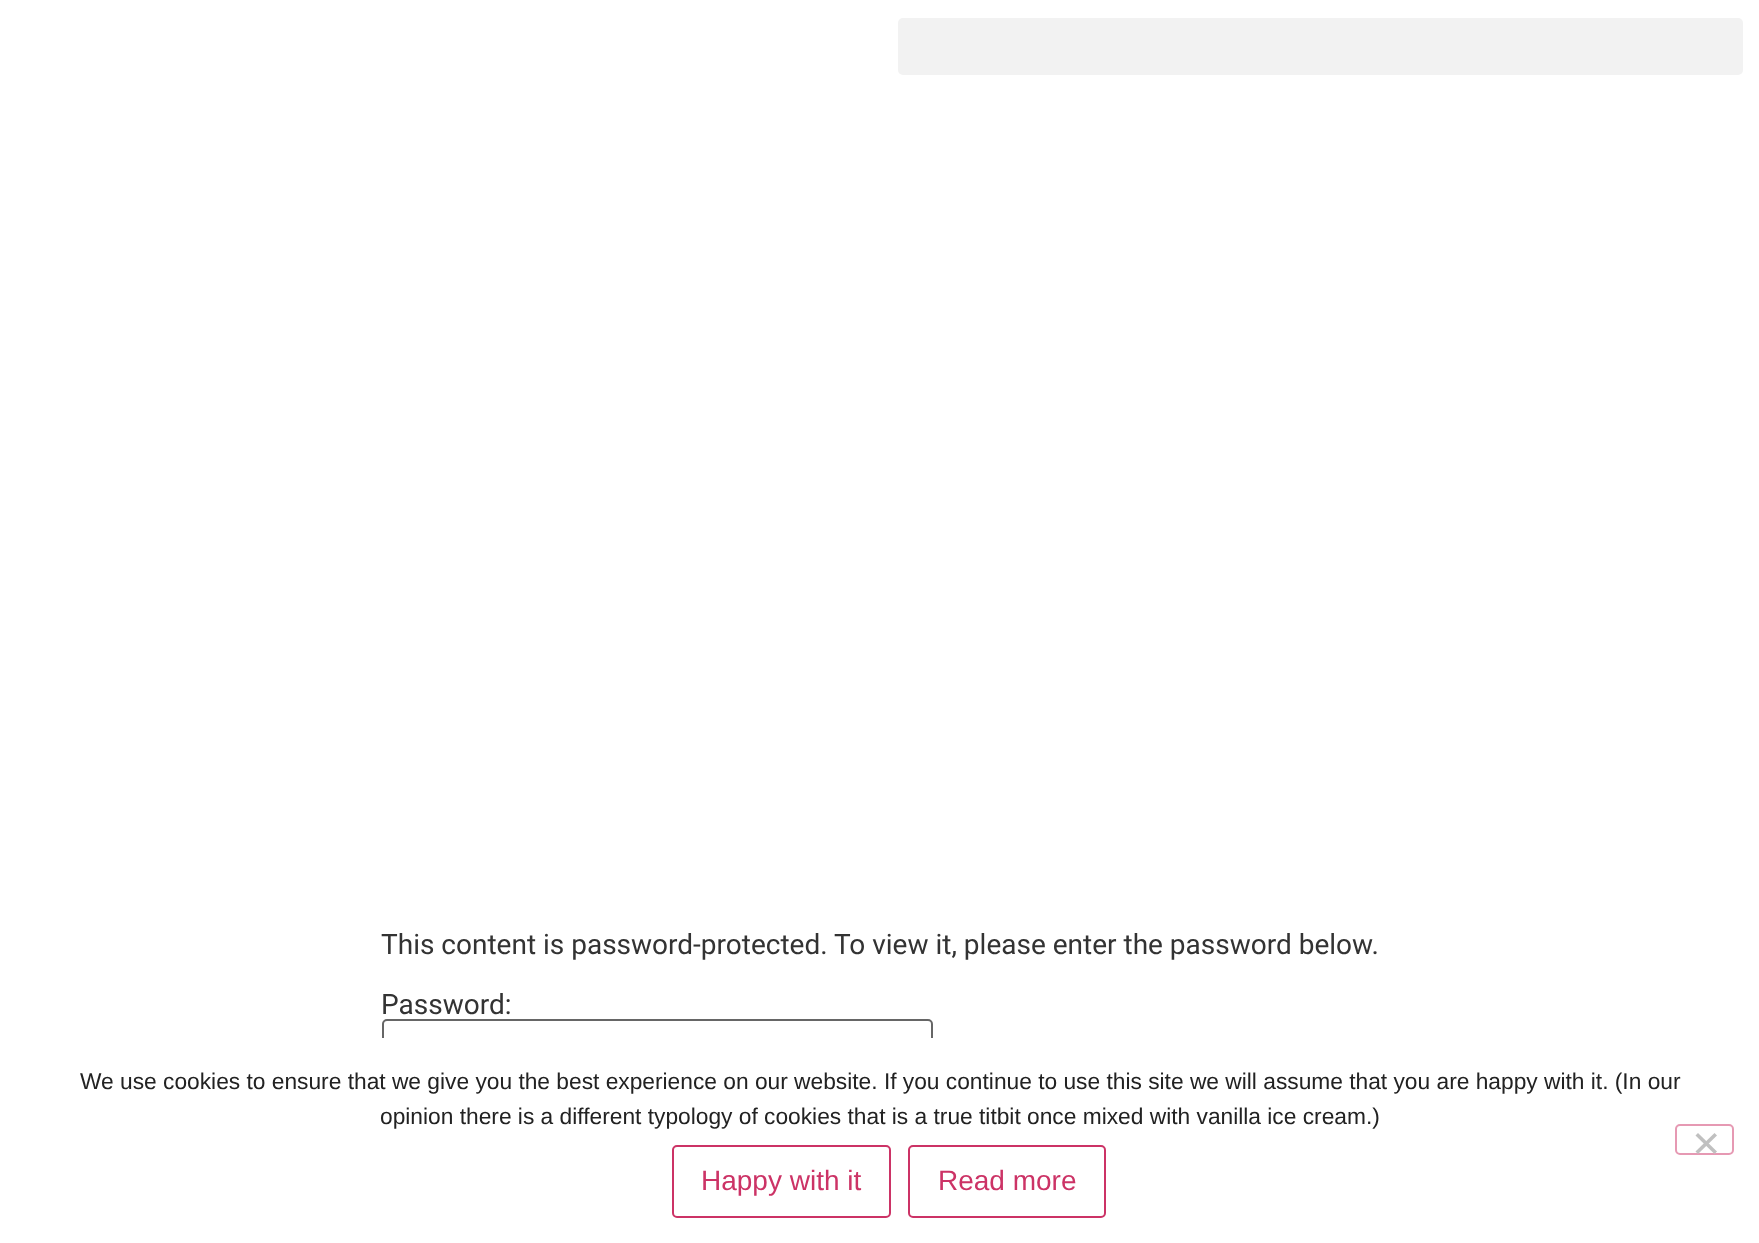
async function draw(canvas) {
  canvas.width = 1759;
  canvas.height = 1243;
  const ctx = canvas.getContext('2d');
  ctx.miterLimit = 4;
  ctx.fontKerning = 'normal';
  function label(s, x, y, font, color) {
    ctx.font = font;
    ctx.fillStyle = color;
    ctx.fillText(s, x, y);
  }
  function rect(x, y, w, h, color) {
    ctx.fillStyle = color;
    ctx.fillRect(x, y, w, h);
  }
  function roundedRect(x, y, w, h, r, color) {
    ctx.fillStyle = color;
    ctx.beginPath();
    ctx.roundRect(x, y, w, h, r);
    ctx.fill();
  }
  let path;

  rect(0, 0, 1759, 1243, '#fff');
  roundedRect(898, 18, 845, 57, 5, '#f2f2f2');
  label('This content is password-protected. To view it, please enter the password below.', 381, 954, '28px Roboto', '#333');
  label('Password:', 381, 1014, '28px Roboto', '#333');
  ctx.beginPath();
  ctx.roundRect(383, 1020, 549, 71, 4);
  ctx.strokeStyle = '#666';
  ctx.lineWidth = 2;
  ctx.stroke();
  rect(382, 1038, 551, 54, '#fff');
  label('We use cookies to ensure that we give you the best experience on our website. If you continue to use this site we will assume that you are happy with it. (In our', 80, 1089, '22.75px Liberation Sans', '#222');
  label('opinion there is a different typology of cookies that is a true titbit once mixed with vanilla ice cream.)', 380, 1124, '22.75px Liberation Sans', '#222');
  ctx.beginPath();
  ctx.roundRect(1676, 1125, 57, 29, 4);
  ctx.strokeStyle = '#e699b3';
  ctx.stroke();
  ctx.fillStyle = '#c0c0c0';
  path = new Path2D('M1714.5 1133L1717 1135.5L1698 1154L1695.5 1151.5Z');
  ctx.fill(path);
  path = new Path2D('M1695.5 1135.5L1698 1133L1717 1151.5L1714.5 1154Z');
  ctx.fill(path);
  ctx.beginPath();
  ctx.roundRect(673, 1146, 217, 71, 4);
  ctx.strokeStyle = '#c36';
  ctx.stroke();
  label('Happy with it', 701, 1190, '28px Liberation Sans', '#c36');
  ctx.beginPath();
  ctx.roundRect(909, 1146, 196, 71, 4);
  ctx.stroke();
  label('Read more', 938, 1190, '28px Liberation Sans', '#c36');
}

draw(document.querySelector('canvas'));
